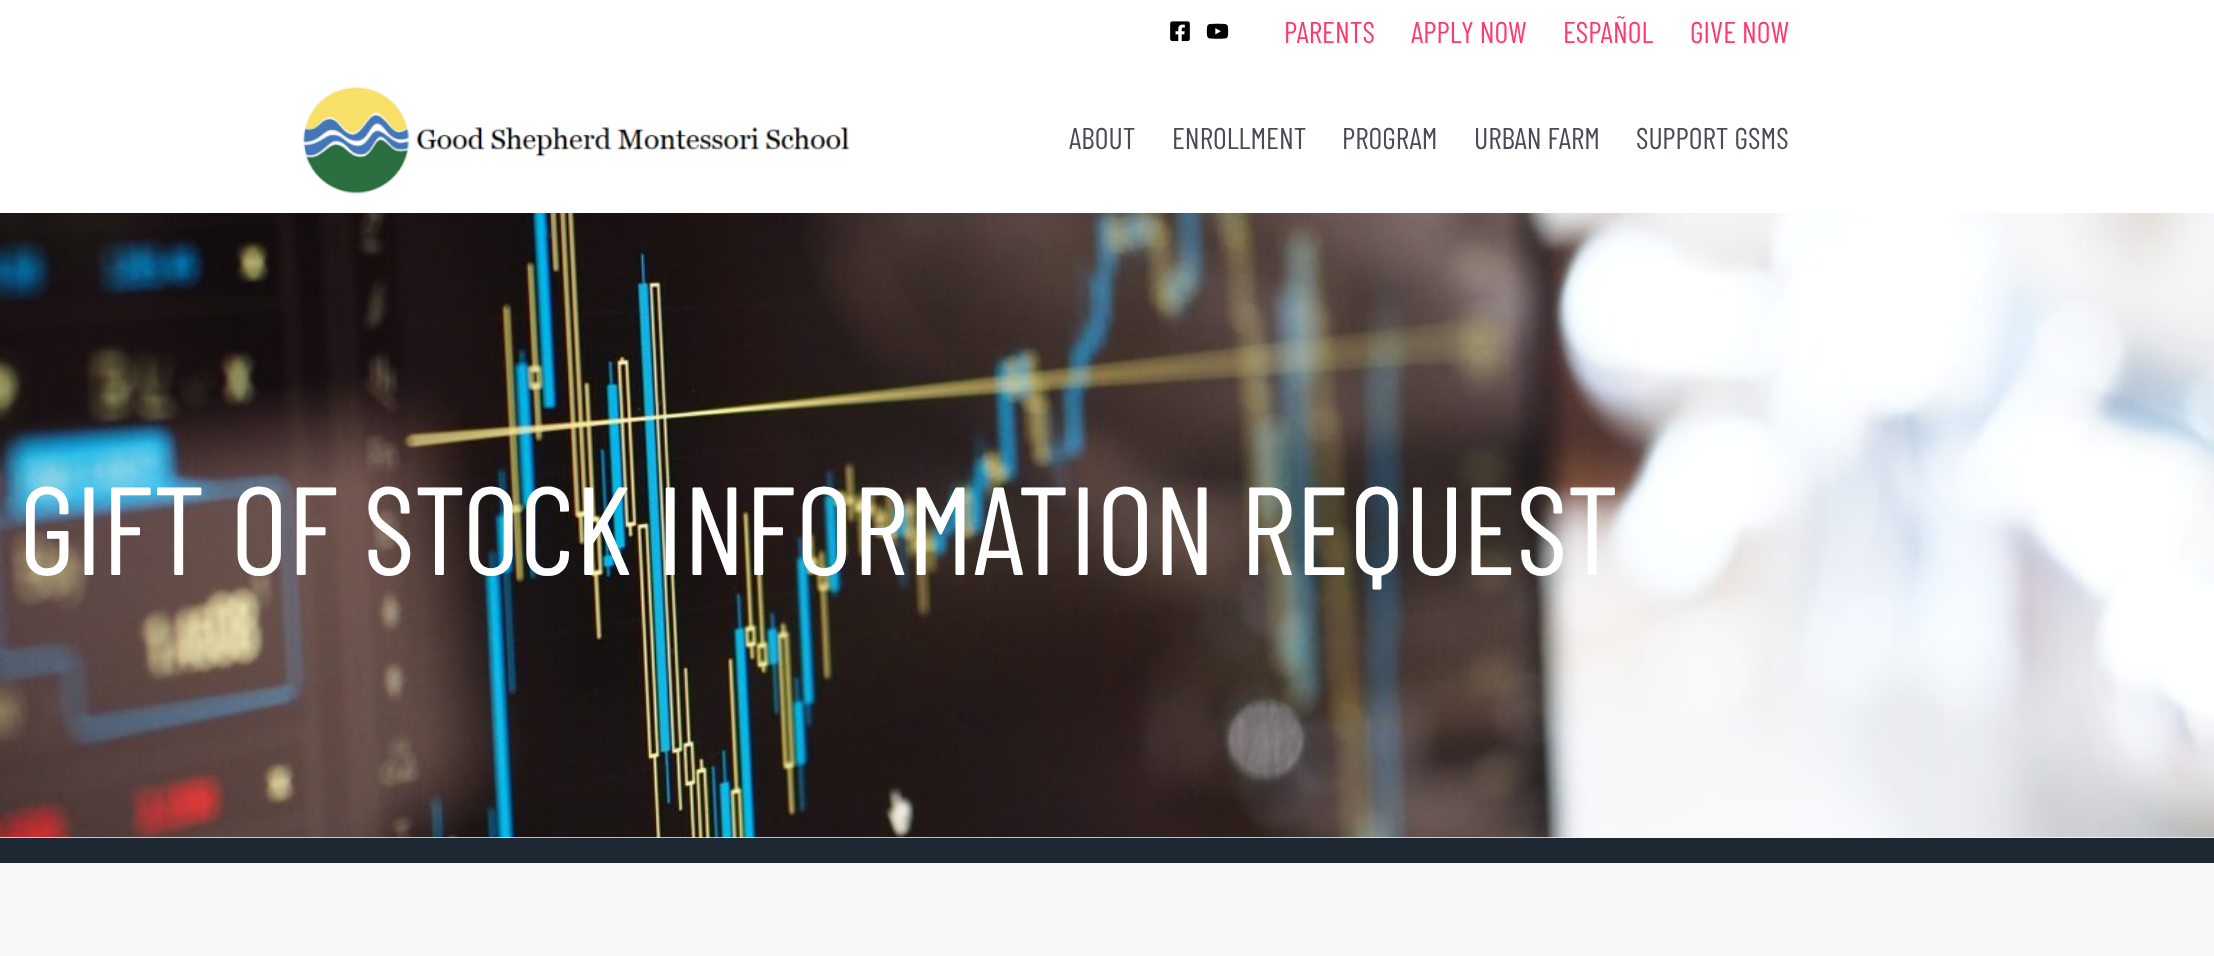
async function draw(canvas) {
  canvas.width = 2214;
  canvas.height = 956;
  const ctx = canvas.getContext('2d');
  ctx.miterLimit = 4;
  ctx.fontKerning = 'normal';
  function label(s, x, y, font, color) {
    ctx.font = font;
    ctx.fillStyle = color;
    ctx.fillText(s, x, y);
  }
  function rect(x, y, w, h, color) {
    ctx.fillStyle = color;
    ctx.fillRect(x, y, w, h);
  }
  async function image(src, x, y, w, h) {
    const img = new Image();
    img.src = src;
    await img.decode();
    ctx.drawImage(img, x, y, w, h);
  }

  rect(0, 0, 2214, 956, '#f7f7f7');
  rect(0, 0, 2214, 213, '#fff');
  await image('assets/img1.png', 1170, 21, 20, 21);
  await image('assets/img2.png', 1206, 23, 23, 16);
  label('PARENTS', 1284, 43, '30px Barlow Condensed', '#ff3a6f');
  label('APPLY NOW', 1411, 43, '30px Barlow Condensed', '#ff3a6f');
  label('ESPAÑOL', 1563, 43, '30px Barlow Condensed', '#ff3a6f');
  label('GIVE NOW', 1690, 43, '30px Barlow Condensed', '#ff3a6f');
  await image('assets/img3.png', 302, 87, 548, 107);
  label('ABOUT', 1069, 149, '30px Barlow Condensed', '#4b4b58');
  label('ENROLLMENT', 1172, 149, '30px Barlow Condensed', '#4b4b58');
  label('PROGRAM', 1342, 149, '30px Barlow Condensed', '#4b4b58');
  label('URBAN FARM', 1474, 149, '30px Barlow Condensed', '#4b4b58');
  label('SUPPORT GSMS', 1636, 149, '30px Barlow Condensed', '#4b4b58');
  await image('assets/img4.png', 0, 213, 2214, 625);
  label('GIFT OF STOCK INFORMATION REQUEST', 19, 575, '125px Barlow Condensed', '#fff');
  rect(0, 838, 2214, 25, '#1e2832');
}

draw(document.querySelector('canvas'));
